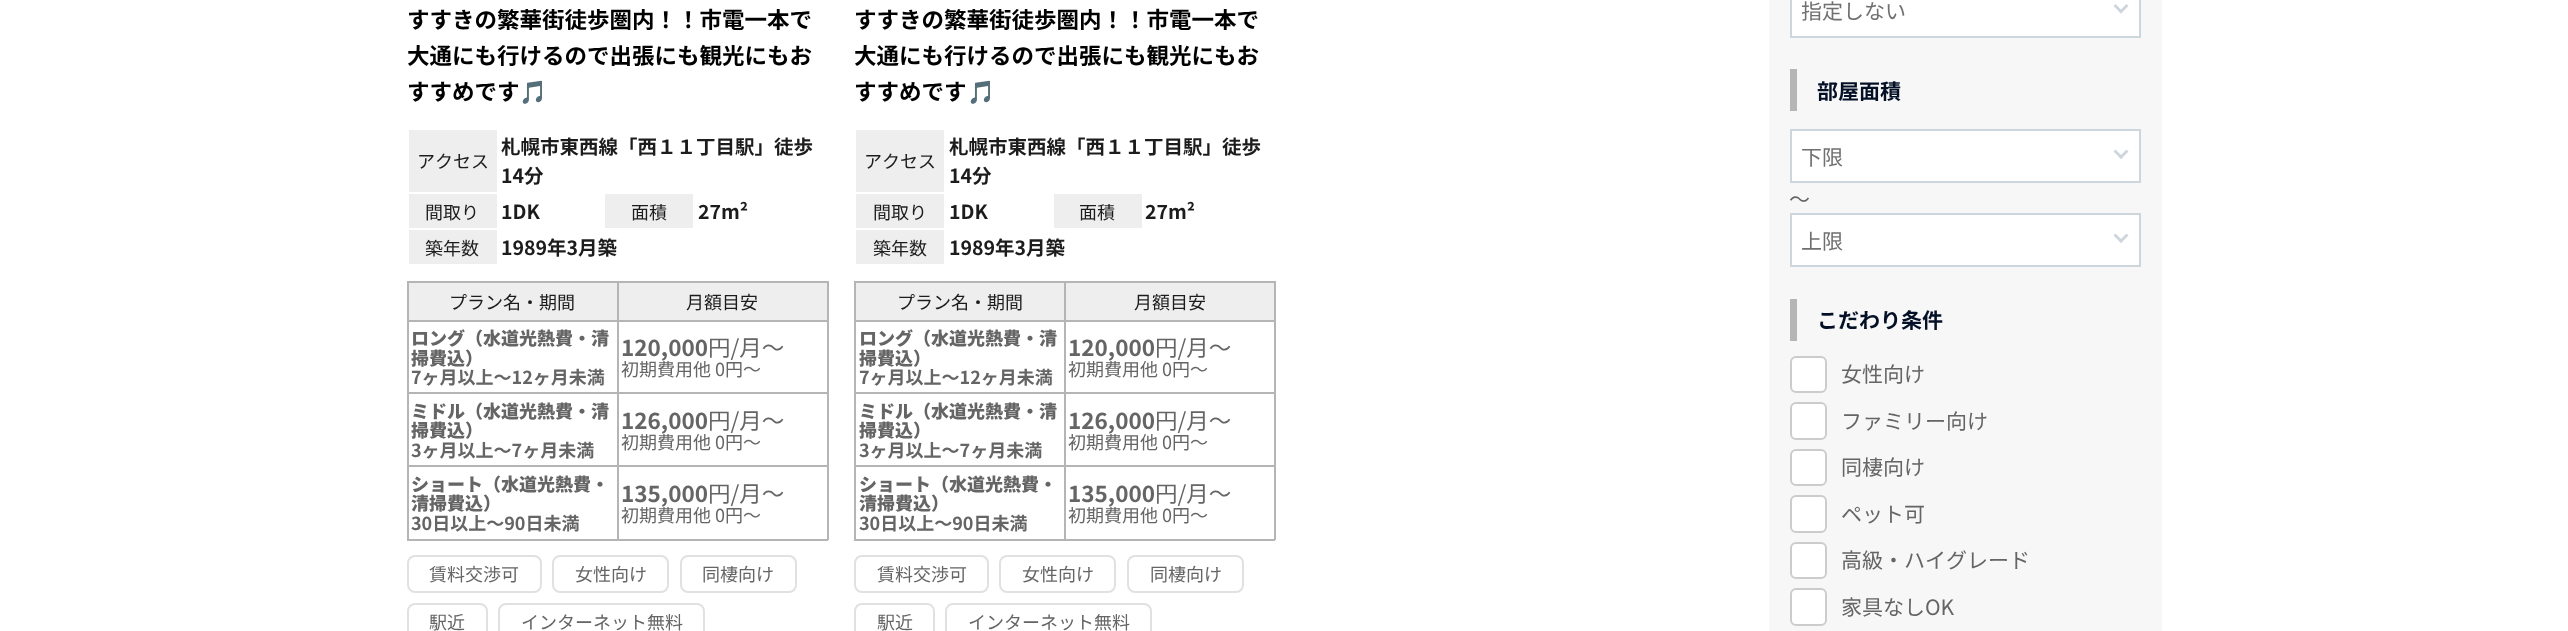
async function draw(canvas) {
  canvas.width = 2568;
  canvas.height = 631;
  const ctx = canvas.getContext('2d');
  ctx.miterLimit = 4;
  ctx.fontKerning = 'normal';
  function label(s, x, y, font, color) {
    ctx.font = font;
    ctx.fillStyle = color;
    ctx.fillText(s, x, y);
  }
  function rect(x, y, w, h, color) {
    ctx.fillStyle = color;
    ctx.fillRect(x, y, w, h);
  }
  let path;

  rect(0, 0, 2568, 631, '#fff');
  label('すすきの繁華街徒歩圏内！！市電一本で', 407, 28, 'bold 22.5px Noto Sans JP', '#000');
  label('大通にも行けるので出張にも観光にもお', 407, 64, 'bold 22.5px Noto Sans JP', '#000');
  label('すすめです', 407, 100, 'bold 22.5px Noto Sans JP', '#000');
  label('🎵', 519, 100, 'bold 22.5px Noto Color Emoji', '#000');
  rect(409, 130, 88, 62, '#edeeed');
  label('アクセス', 417, 168, '18px Noto Sans JP', '#1c1c1c');
  label('札幌市東西線「西１１丁目駅」徒歩', 501, 154, 'bold 19.5px Noto Sans JP', '#1c1c1c');
  label('14分', 501, 183, 'bold 19.5px Noto Sans JP', '#1c1c1c');
  rect(409, 194, 88, 34, '#edeeed');
  label('間取り', 425, 219, '18px Noto Sans JP', '#1c1c1c');
  label('1DK', 501, 219, 'bold 19.5px Noto Sans JP', '#1c1c1c');
  rect(605, 194, 88, 34, '#edeeed');
  label('面積', 631, 219, '18px Noto Sans JP', '#1c1c1c');
  label('27m²', 698, 219, 'bold 19.5px Noto Sans JP', '#1c1c1c');
  rect(409, 230, 88, 34, '#edeeed');
  label('築年数', 425, 255, '18px Noto Sans JP', '#1c1c1c');
  label('1989年3月築', 501, 255, 'bold 19.5px Noto Sans JP', '#1c1c1c');
  rect(407, 281, 421, 2, '#b5b5b5');
  rect(407, 281, 2, 259, '#b5b5b5');
  rect(409, 283, 208, 37, '#edeeed');
  rect(827, 281, 2, 259, '#b5b5b5');
  rect(617, 539, 211, 2, '#b5b5b5');
  rect(617, 465, 2, 75, '#b5b5b5');
  rect(617, 465, 211, 2, '#b5b5b5');
  rect(617, 392, 2, 75, '#b5b5b5');
  rect(617, 392, 211, 2, '#b5b5b5');
  rect(617, 320, 2, 73, '#b5b5b5');
  rect(617, 320, 211, 2, '#b5b5b5');
  rect(617, 281, 2, 40, '#b5b5b5');
  rect(407, 320, 211, 2, '#b5b5b5');
  label('プラン名・期間', 449, 309, '18px Noto Sans JP', '#1c1c1c');
  rect(619, 283, 208, 37, '#edeeed');
  label('月額目安', 686, 309, '18px Noto Sans JP', '#1c1c1c');
  rect(407, 392, 211, 2, '#b5b5b5');
  label('ロング（水道光熱費・清', 411, 345, '900 18px Noto Sans JP', '#656565');
  label('掃費込）', 411, 365, '900 18px Noto Sans JP', '#656565');
  label('7ヶ月以上～12ヶ月未満', 411, 384, 'bold 18px Noto Sans JP', '#656565');
  label('120,000', 621, 356, 'bold 22.5px Noto Sans JP', '#656565');
  label('円/月～', 708, 356, '22.5px Noto Sans JP', '#656565');
  label('初期費用他 0円～', 621, 376, '18px Noto Sans JP', '#656565');
  rect(407, 465, 211, 2, '#b5b5b5');
  label('ミドル（水道光熱費・清', 411, 418, '900 18px Noto Sans JP', '#656565');
  label('掃費込）', 411, 437, '900 18px Noto Sans JP', '#656565');
  label('3ヶ月以上～7ヶ月未満', 411, 457, 'bold 18px Noto Sans JP', '#656565');
  label('126,000', 621, 429, 'bold 22.5px Noto Sans JP', '#656565');
  label('円/月～', 708, 429, '22.5px Noto Sans JP', '#656565');
  label('初期費用他 0円～', 621, 449, '18px Noto Sans JP', '#656565');
  rect(407, 539, 211, 2, '#b5b5b5');
  label('ショート（水道光熱費・', 411, 491, '900 18px Noto Sans JP', '#656565');
  label('清掃費込）', 411, 510, '900 18px Noto Sans JP', '#656565');
  label('30日以上～90日未満', 411, 530, 'bold 18px Noto Sans JP', '#656565');
  label('135,000', 621, 502, 'bold 22.5px Noto Sans JP', '#656565');
  label('円/月～', 708, 502, '22.5px Noto Sans JP', '#656565');
  label('初期費用他 0円～', 621, 522, '18px Noto Sans JP', '#656565');
  ctx.beginPath();
  ctx.roundRect(408, 556, 133, 36, 7);
  ctx.strokeStyle = '#e1e1e1';
  ctx.lineWidth = 2;
  ctx.stroke();
  label('賃料交渉可', 429, 581, '18px Noto Sans JP', '#656565');
  ctx.beginPath();
  ctx.roundRect(553, 556, 115, 36, 7);
  ctx.stroke();
  label('女性向け', 575, 581, '18px Noto Sans JP', '#656565');
  ctx.beginPath();
  ctx.roundRect(681, 556, 115, 36, 7);
  ctx.stroke();
  label('同棲向け', 702, 581, '18px Noto Sans JP', '#656565');
  ctx.beginPath();
  ctx.roundRect(408, 604, 79, 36, 7);
  ctx.stroke();
  label('駅近', 429, 629, '18px Noto Sans JP', '#656565');
  ctx.beginPath();
  ctx.roundRect(499, 604, 205, 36, 7);
  ctx.stroke();
  label('インターネット無料', 521, 629, '18px Noto Sans JP', '#656565');
  label('すすきの繁華街徒歩圏内！！市電一本で', 854, 28, 'bold 22.5px Noto Sans JP', '#000');
  label('大通にも行けるので出張にも観光にもお', 854, 64, 'bold 22.5px Noto Sans JP', '#000');
  label('すすめです', 854, 100, 'bold 22.5px Noto Sans JP', '#000');
  label('🎵', 967, 100, 'bold 22.5px Noto Color Emoji', '#000');
  rect(856, 130, 88, 62, '#edeeed');
  label('アクセス', 864, 168, '18px Noto Sans JP', '#1c1c1c');
  label('札幌市東西線「西１１丁目駅」徒歩', 949, 154, 'bold 19.5px Noto Sans JP', '#1c1c1c');
  label('14分', 949, 183, 'bold 19.5px Noto Sans JP', '#1c1c1c');
  rect(856, 194, 88, 34, '#edeeed');
  label('間取り', 873, 219, '18px Noto Sans JP', '#1c1c1c');
  label('1DK', 949, 219, 'bold 19.5px Noto Sans JP', '#1c1c1c');
  rect(1054, 194, 88, 34, '#edeeed');
  label('面積', 1079, 219, '18px Noto Sans JP', '#1c1c1c');
  label('27m²', 1145, 219, 'bold 19.5px Noto Sans JP', '#1c1c1c');
  rect(856, 230, 88, 34, '#edeeed');
  label('築年数', 873, 255, '18px Noto Sans JP', '#1c1c1c');
  label('1989年3月築', 949, 255, 'bold 19.5px Noto Sans JP', '#1c1c1c');
  rect(854, 281, 421, 2, '#b5b5b5');
  rect(854, 281, 2, 259, '#b5b5b5');
  rect(856, 283, 208, 37, '#edeeed');
  rect(1274, 281, 2, 259, '#b5b5b5');
  rect(1064, 539, 211, 2, '#b5b5b5');
  rect(1064, 465, 2, 75, '#b5b5b5');
  rect(1064, 465, 211, 2, '#b5b5b5');
  rect(1064, 392, 2, 75, '#b5b5b5');
  rect(1064, 392, 211, 2, '#b5b5b5');
  rect(1064, 320, 2, 73, '#b5b5b5');
  rect(1064, 320, 211, 2, '#b5b5b5');
  rect(1064, 281, 2, 40, '#b5b5b5');
  rect(854, 320, 211, 2, '#b5b5b5');
  label('プラン名・期間', 897, 309, '18px Noto Sans JP', '#1c1c1c');
  rect(1066, 283, 208, 37, '#edeeed');
  label('月額目安', 1134, 309, '18px Noto Sans JP', '#1c1c1c');
  rect(854, 392, 211, 2, '#b5b5b5');
  label('ロング（水道光熱費・清', 859, 345, '900 18px Noto Sans JP', '#656565');
  label('掃費込）', 859, 365, '900 18px Noto Sans JP', '#656565');
  label('7ヶ月以上～12ヶ月未満', 859, 384, 'bold 18px Noto Sans JP', '#656565');
  label('120,000', 1068, 356, 'bold 22.5px Noto Sans JP', '#656565');
  label('円/月～', 1155, 356, '22.5px Noto Sans JP', '#656565');
  label('初期費用他 0円～', 1068, 376, '18px Noto Sans JP', '#656565');
  rect(854, 465, 211, 2, '#b5b5b5');
  label('ミドル（水道光熱費・清', 859, 418, '900 18px Noto Sans JP', '#656565');
  label('掃費込）', 859, 437, '900 18px Noto Sans JP', '#656565');
  label('3ヶ月以上～7ヶ月未満', 859, 457, 'bold 18px Noto Sans JP', '#656565');
  label('126,000', 1068, 429, 'bold 22.5px Noto Sans JP', '#656565');
  label('円/月～', 1155, 429, '22.5px Noto Sans JP', '#656565');
  label('初期費用他 0円～', 1068, 449, '18px Noto Sans JP', '#656565');
  rect(854, 539, 211, 2, '#b5b5b5');
  label('ショート（水道光熱費・', 859, 491, '900 18px Noto Sans JP', '#656565');
  label('清掃費込）', 859, 510, '900 18px Noto Sans JP', '#656565');
  label('30日以上～90日未満', 859, 530, 'bold 18px Noto Sans JP', '#656565');
  label('135,000', 1068, 502, 'bold 22.5px Noto Sans JP', '#656565');
  label('円/月～', 1155, 502, '22.5px Noto Sans JP', '#656565');
  label('初期費用他 0円～', 1068, 522, '18px Noto Sans JP', '#656565');
  ctx.beginPath();
  ctx.roundRect(855, 556, 133, 36, 7);
  ctx.stroke();
  label('賃料交渉可', 877, 581, '18px Noto Sans JP', '#656565');
  ctx.beginPath();
  ctx.roundRect(1000, 556, 115, 36, 7);
  ctx.stroke();
  label('女性向け', 1022, 581, '18px Noto Sans JP', '#656565');
  ctx.beginPath();
  ctx.roundRect(1128, 556, 115, 36, 7);
  ctx.stroke();
  label('同棲向け', 1150, 581, '18px Noto Sans JP', '#656565');
  ctx.beginPath();
  ctx.roundRect(855, 604, 79, 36, 7);
  ctx.stroke();
  label('駅近', 877, 629, '18px Noto Sans JP', '#656565');
  ctx.beginPath();
  ctx.roundRect(946, 604, 205, 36, 7);
  ctx.stroke();
  label('インターネット無料', 968, 629, '18px Noto Sans JP', '#656565');
  rect(1769, 0, 393, 631, '#f7f7f7');
  ctx.fillStyle = '#fff';
  ctx.beginPath();
  ctx.rect(1791, -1, 349, 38);
  ctx.fill();
  ctx.strokeStyle = '#cdd6dd';
  ctx.stroke();
  ctx.save();
  ctx.beginPath();
  ctx.rect(1802, 0, 327, 26);
  ctx.clip();
  label('指定しない', 1801, 19, '21px Noto Sans JP', '#707070');
  ctx.restore();
  ctx.fillStyle = '#cdd6dd';
  path = new Path2D('M2119 11.5L2126.5 4L2128.5 6L2121 13.5Z');
  ctx.fill(path);
  path = new Path2D('M2113.5 6L2115.5 4L2123 11.5L2121 13.5Z');
  ctx.fill(path);
  rect(1790, 69, 7, 42, '#b5b5b5');
  label('部屋面積', 1817, 99, 'bold 21px Noto Sans JP', '#041025');
  ctx.fillStyle = '#fff';
  ctx.beginPath();
  ctx.rect(1791, 130, 349, 52);
  ctx.fill();
  ctx.stroke();
  label('下限', 1801, 165, '21px Noto Sans JP', '#707070');
  ctx.fillStyle = '#cdd6dd';
  path = new Path2D('M2119 157L2126.5 149.5L2128.5 151.5L2121 159Z');
  ctx.fill(path);
  path = new Path2D('M2113.5 151.5L2115.5 149.5L2123 157L2121 159Z');
  ctx.fill(path);
  label('～', 1789, 207, '21px Noto Sans JP', '#656565');
  ctx.fillStyle = '#fff';
  ctx.beginPath();
  ctx.rect(1791, 214, 349, 52);
  ctx.fill();
  ctx.stroke();
  label('上限', 1801, 249, '21px Noto Sans JP', '#707070');
  ctx.fillStyle = '#cdd6dd';
  path = new Path2D('M2119 241L2126.5 233.5L2128.5 235.5L2121 243Z');
  ctx.fill(path);
  path = new Path2D('M2113.5 235.5L2115.5 233.5L2123 241L2121 243Z');
  ctx.fill(path);
  rect(1790, 299, 7, 42, '#b5b5b5');
  label('こだわり条件', 1817, 328, 'bold 21px Noto Sans JP', '#041025');
  ctx.fillStyle = '#fff';
  ctx.beginPath();
  ctx.roundRect(1791, 357, 35, 35, 5);
  ctx.fill();
  ctx.strokeStyle = '#ccc';
  ctx.stroke();
  label('女性向け', 1841, 382, '21px Noto Sans JP', '#656565');
  ctx.fillStyle = '#fff';
  ctx.beginPath();
  ctx.roundRect(1791, 403, 35, 36, 5);
  ctx.fill();
  ctx.stroke();
  label('ファミリー向け', 1841, 429, '21px Noto Sans JP', '#656565');
  ctx.fillStyle = '#fff';
  ctx.beginPath();
  ctx.roundRect(1791, 450, 35, 35, 5);
  ctx.fill();
  ctx.stroke();
  label('同棲向け', 1841, 475, '21px Noto Sans JP', '#656565');
  ctx.fillStyle = '#fff';
  ctx.beginPath();
  ctx.roundRect(1791, 496, 35, 36, 5);
  ctx.fill();
  ctx.stroke();
  label('ペット可', 1841, 522, '21px Noto Sans JP', '#656565');
  ctx.fillStyle = '#fff';
  ctx.beginPath();
  ctx.roundRect(1791, 543, 35, 35, 5);
  ctx.fill();
  ctx.stroke();
  label('高級・ハイグレード', 1841, 568, '21px Noto Sans JP', '#656565');
  ctx.fillStyle = '#fff';
  ctx.beginPath();
  ctx.roundRect(1791, 589, 35, 36, 5);
  ctx.fill();
  ctx.stroke();
  label('家具なしOK', 1841, 615, '21px Noto Sans JP', '#656565');
}

draw(document.querySelector('canvas'));
